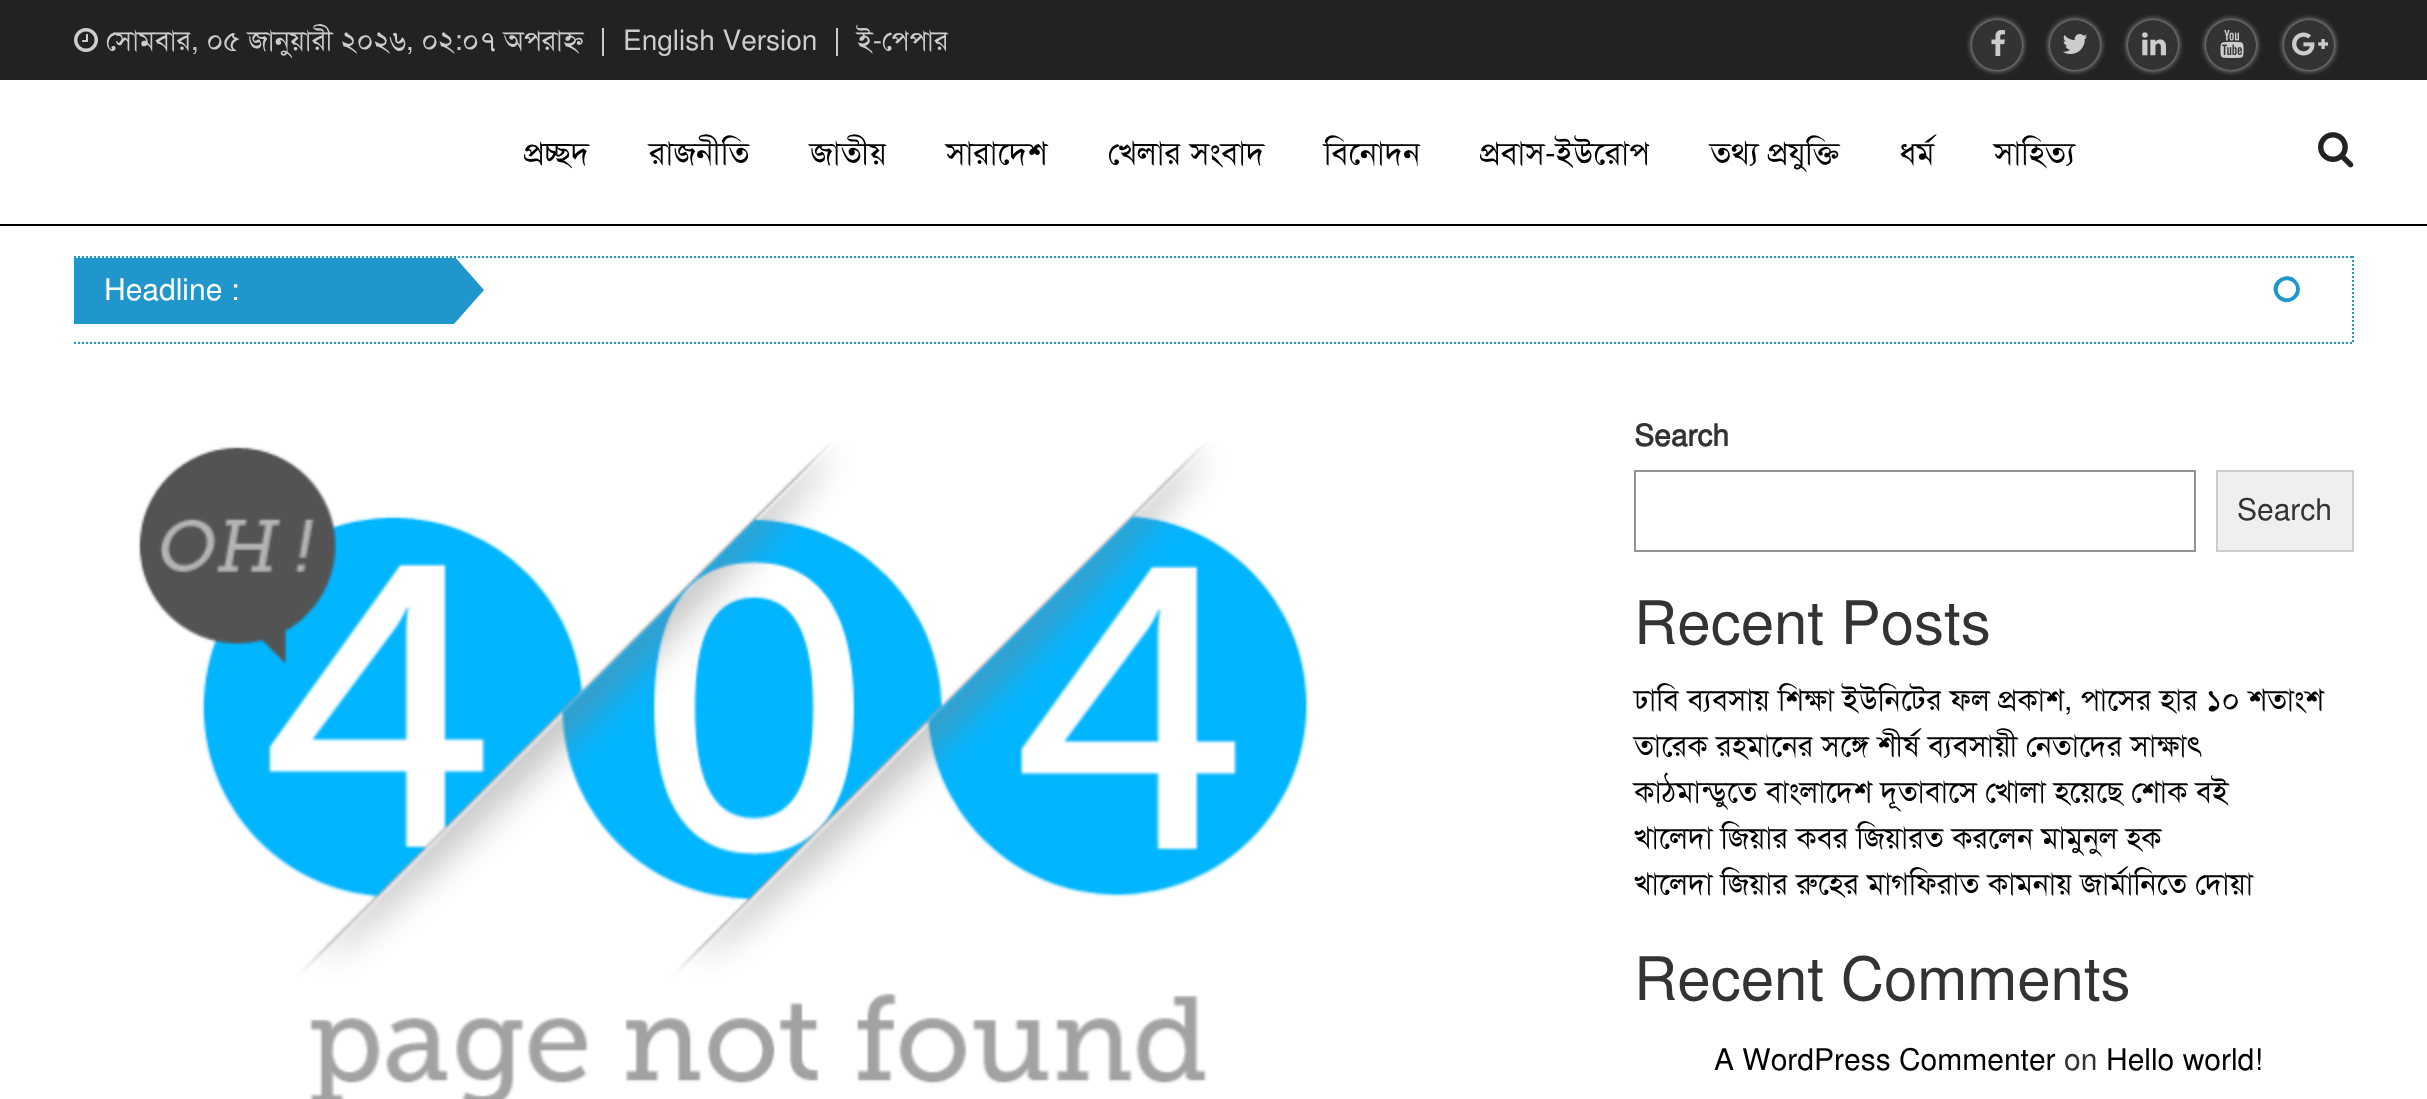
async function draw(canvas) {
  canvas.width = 2427;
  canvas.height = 1099;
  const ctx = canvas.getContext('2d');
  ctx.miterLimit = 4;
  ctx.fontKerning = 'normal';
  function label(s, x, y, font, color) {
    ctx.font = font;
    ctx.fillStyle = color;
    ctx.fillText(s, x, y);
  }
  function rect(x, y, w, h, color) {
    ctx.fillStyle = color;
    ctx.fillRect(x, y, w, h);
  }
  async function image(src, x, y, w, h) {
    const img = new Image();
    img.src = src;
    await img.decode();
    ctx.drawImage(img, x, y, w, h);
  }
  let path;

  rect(0, 0, 2427, 1099, '#fff');
  rect(0, 0, 2427, 80, '#222');
  await image('assets/img1.png', 74, 28, 24, 24);
  label('সোমবার, ০৫ জানুয়ারী ২০২৬, ০২:০৭ অপরাহ্ন', 106, 50, '28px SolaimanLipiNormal', '#ccc');
  rect(602, 28, 2, 28, '#ccc');
  label('English Version', 623, 50, '28px SolaimanLipiNormal', '#ccc');
  rect(836, 28, 2, 28, '#ccc');
  label('ই-পেপার', 857, 50, '28px SolaimanLipiNormal', '#ccc');
  ctx.filter = 'blur(3px)';
  ctx.beginPath();
  ctx.roundRect(1972, 20, 50, 50, 25);
  ctx.fill();
  ctx.filter = 'none';
  ctx.fillStyle = '#333';
  ctx.beginPath();
  ctx.arc(1997, 45, 25, 0, 2 * Math.PI);
  ctx.fill();
  await image('assets/img2.png', 1991, 30, 14, 26);
  ctx.fillStyle = '#ccc';
  ctx.filter = 'blur(3px)';
  ctx.beginPath();
  ctx.roundRect(2050, 20, 50, 50, 25);
  ctx.fill();
  ctx.filter = 'none';
  ctx.fillStyle = '#333';
  ctx.beginPath();
  ctx.arc(2075, 45, 25, 0, 2 * Math.PI);
  ctx.fill();
  await image('assets/img3.png', 2062, 34, 26, 20);
  ctx.fillStyle = '#ccc';
  ctx.filter = 'blur(3px)';
  ctx.beginPath();
  ctx.roundRect(2128, 20, 50, 50, 25);
  ctx.fill();
  ctx.filter = 'none';
  ctx.fillStyle = '#333';
  ctx.beginPath();
  ctx.arc(2153, 45, 25, 0, 2 * Math.PI);
  ctx.fill();
  await image('assets/img4.png', 2142, 32, 24, 24);
  ctx.fillStyle = '#ccc';
  ctx.filter = 'blur(3px)';
  ctx.beginPath();
  ctx.roundRect(2206, 20, 50, 50, 25);
  ctx.fill();
  ctx.filter = 'none';
  ctx.fillStyle = '#333';
  ctx.beginPath();
  ctx.arc(2231, 45, 25, 0, 2 * Math.PI);
  ctx.fill();
  await image('assets/img5.png', 2220, 30, 24, 28);
  ctx.fillStyle = '#ccc';
  ctx.filter = 'blur(3px)';
  ctx.beginPath();
  ctx.roundRect(2284, 20, 50, 50, 25);
  ctx.fill();
  ctx.filter = 'none';
  ctx.fillStyle = '#333';
  ctx.beginPath();
  ctx.arc(2309, 45, 25, 0, 2 * Math.PI);
  ctx.fill();
  await image('assets/img6.png', 2292, 32, 36, 24);
  rect(0, 224, 2427, 2, '#000');
  label('প্রচ্ছদ', 524, 164, '32px SolaimanLipiNormal', '#000');
  label('রাজনীতি', 649, 164, '32px SolaimanLipiNormal', '#000');
  label('জাতীয়', 810, 164, '32px SolaimanLipiNormal', '#000');
  label('সারাদেশ', 946, 164, '32px SolaimanLipiNormal', '#000');
  label('খেলার সংবাদ', 1108, 164, '32px SolaimanLipiNormal', '#000');
  label('বিনোদন', 1324, 164, '32px SolaimanLipiNormal', '#000');
  label('প্রবাস-ইউরোপ', 1480, 164, '32px SolaimanLipiNormal', '#000');
  label('তথ্য প্রযুক্তি', 1710, 164, '32px SolaimanLipiNormal', '#000');
  label('ধর্ম', 1899, 164, '32px SolaimanLipiNormal', '#000');
  label('সাহিত্য', 1994, 164, '32px SolaimanLipiNormal', '#000');
  await image('assets/img7.png', 2318, 132, 36, 36);
  path = new Path2D('M74 257H2354');
  ctx.strokeStyle = '#2096cd';
  ctx.lineWidth = 2;
  ctx.setLineDash([2, 2]);
  ctx.stroke(path);
  path = new Path2D('M2353 256V344');
  ctx.stroke(path);
  path = new Path2D('M74 343H2354');
  ctx.stroke(path);
  rect(74, 258, 380, 66, '#2096cd');
  label('Headline :', 104, 300, '30px SolaimanLipiNormal', '#fff');
  ctx.fillStyle = '#2096cd';
  path = new Path2D('M454 324V256L484 290Z');
  ctx.fill(path);
  path = new Path2D('M2291.5 281.5C2281 275.5 2272 291 2282.5 297C2292.5 303 2302 287.5 2291.5 281.5ZM2298 283C2306.5 297.5 2284.5 310.5 2275.5 295.5C2267 281 2289.5 268 2298 283Z');
  ctx.fill(path);
  await image('assets/img8.png', 138, 442, 1171, 657);
  label('Search', 1634, 446, 'bold 30px SolaimanLipiNormal', '#333');
  ctx.strokeStyle = '#949494';
  ctx.setLineDash([]);
  ctx.strokeRect(1635, 471, 560, 80);
  ctx.fillStyle = '#efefef';
  ctx.beginPath();
  ctx.rect(2217, 471, 136, 80);
  ctx.fill();
  ctx.strokeStyle = '#ccc';
  ctx.stroke();
  label('Search', 2237, 520, '30px SolaimanLipiNormal', '#333');
  label('Recent Posts', 1634, 644, '60px SolaimanLipiNormal', '#333');
  label('ঢাবি ব্যবসায় শিক্ষা ইউনিটের ফল প্রকাশ, পাসের হার ১০ শতাংশ', 1634, 710, '30px SolaimanLipiNormal', '#000');
  label('তারেক রহমানের সঙ্গে শীর্ষ ব্যবসায়ী নেতাদের সাক্ষাৎ', 1634, 756, '30px SolaimanLipiNormal', '#000');
  label('কাঠমান্ডুতে বাংলাদেশ দূতাবাসে খোলা হয়েছে শোক বই', 1634, 802, '30px SolaimanLipiNormal', '#000');
  label('খালেদা জিয়ার কবর জিয়ারত করলেন মামুনুল হক', 1634, 848, '30px SolaimanLipiNormal', '#000');
  label('খালেদা জিয়ার রুহের মাগফিরাত কামনায় জার্মানিতে দোয়া', 1634, 894, '30px SolaimanLipiNormal', '#000');
  label('Recent Comments', 1634, 1000, '60px SolaimanLipiNormal', '#333');
  label('A WordPress Commenter', 1714, 1070, '30px SolaimanLipiNormal', '#000');
  label('on', 2064, 1070, '30px SolaimanLipiNormal', '#333');
  label('Hello world!', 2106, 1070, '30px SolaimanLipiNormal', '#000');
}

draw(document.querySelector('canvas'));
